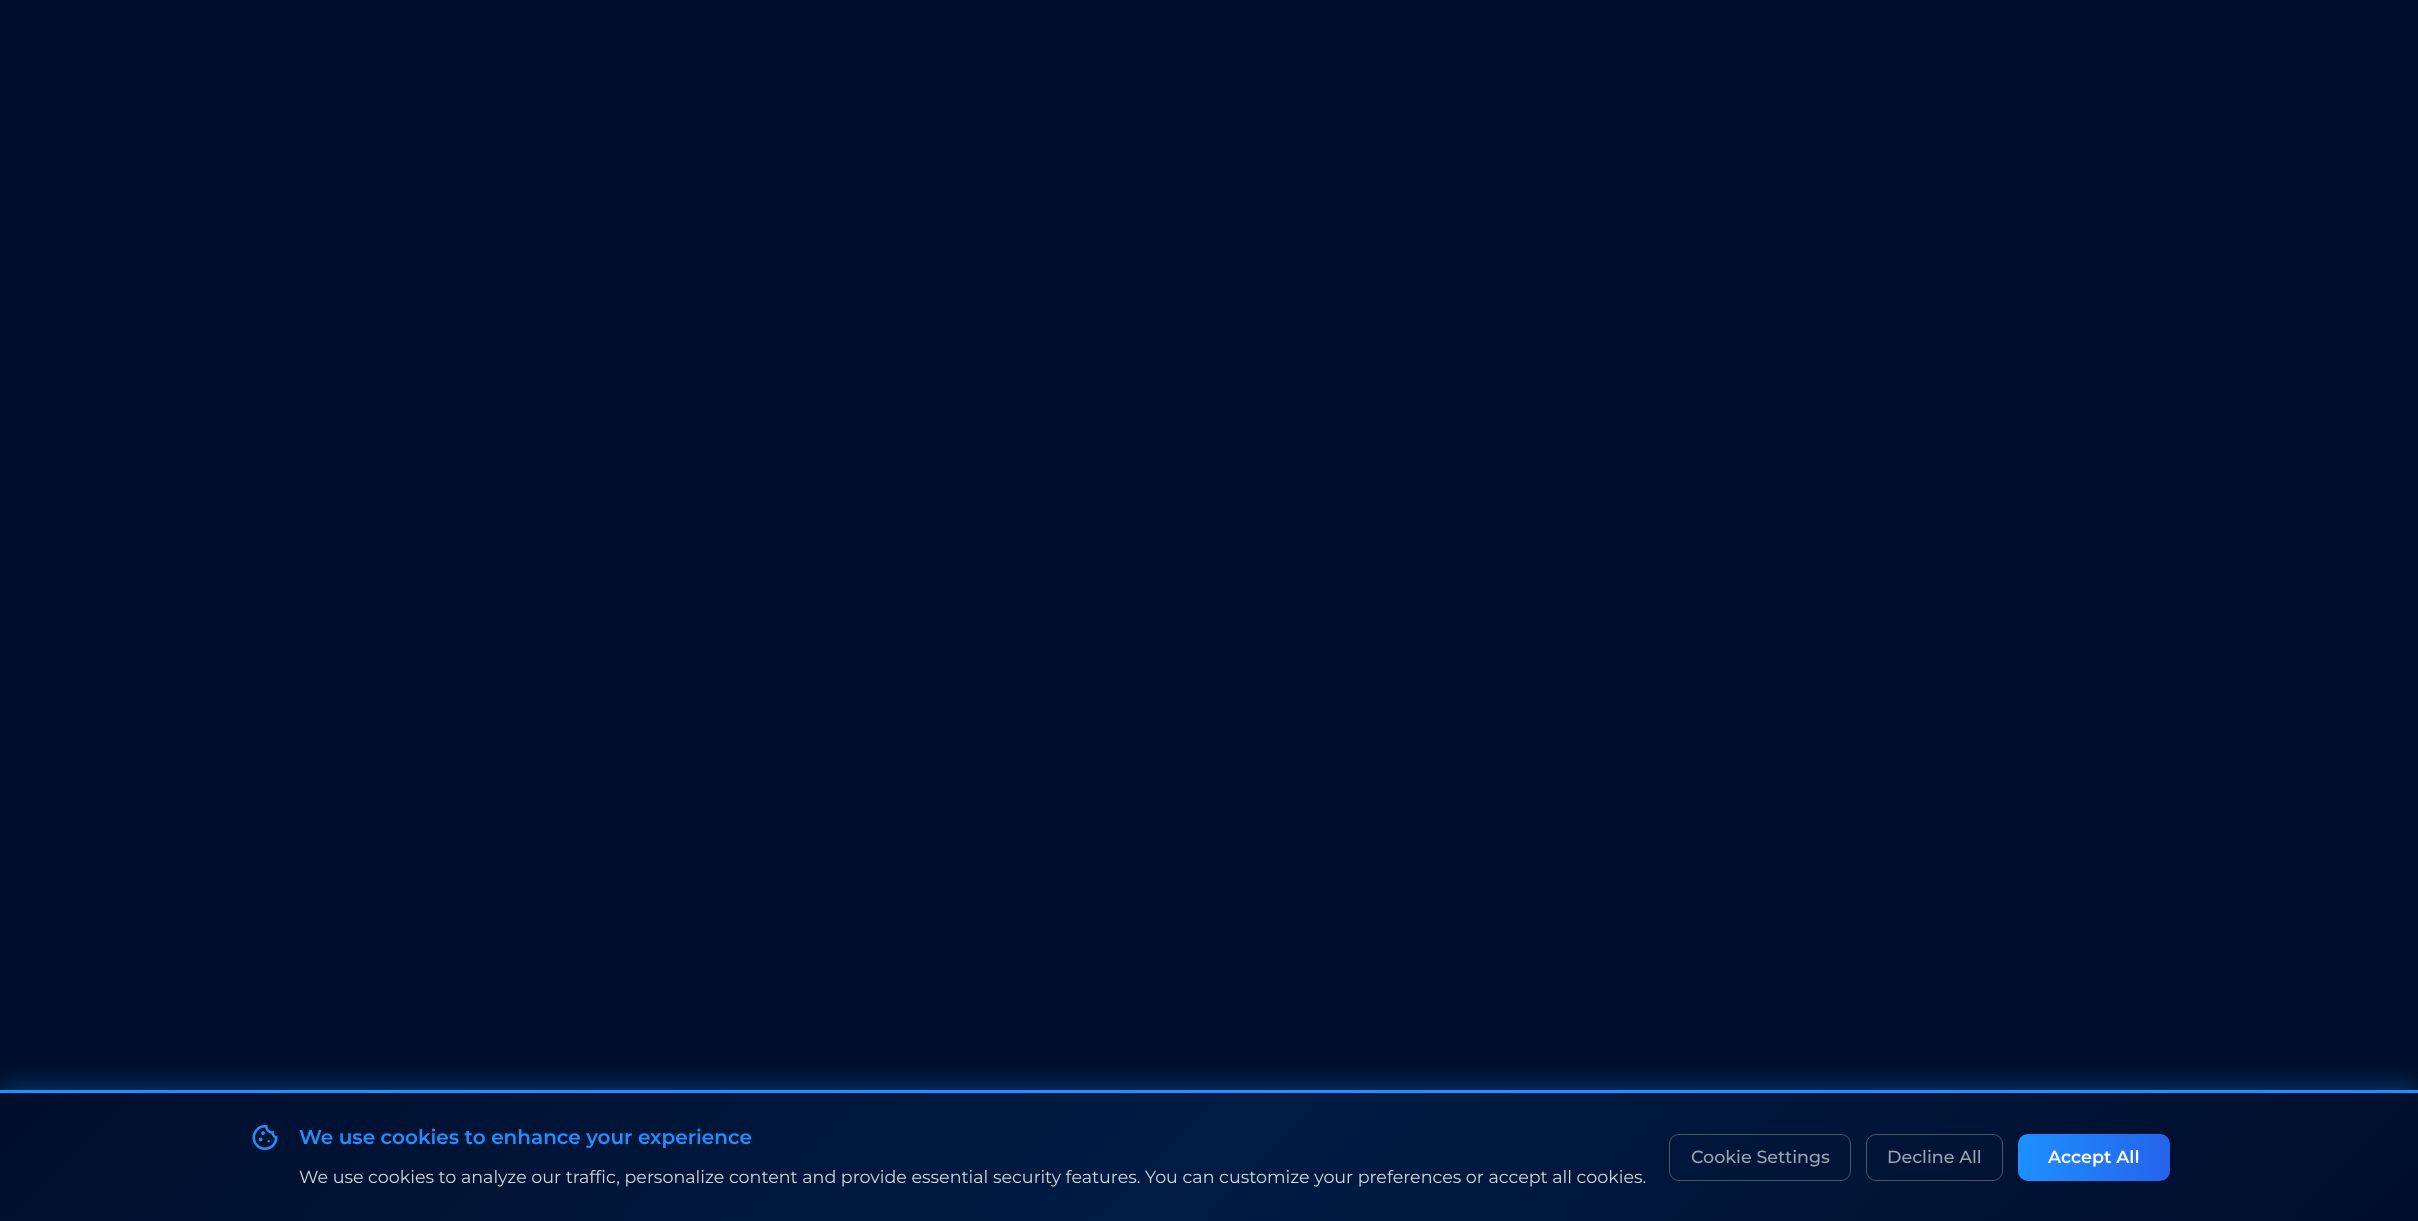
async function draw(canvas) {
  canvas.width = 2418;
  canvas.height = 1221;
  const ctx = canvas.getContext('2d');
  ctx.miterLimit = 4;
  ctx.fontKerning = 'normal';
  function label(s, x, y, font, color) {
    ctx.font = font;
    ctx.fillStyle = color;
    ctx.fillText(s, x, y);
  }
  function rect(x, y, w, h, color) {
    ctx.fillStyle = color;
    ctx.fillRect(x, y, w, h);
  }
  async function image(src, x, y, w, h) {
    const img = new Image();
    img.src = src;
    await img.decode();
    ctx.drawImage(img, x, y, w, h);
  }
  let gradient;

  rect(0, 0, 2418, 1221, '#000e2b');
  ctx.fillStyle = '#1e90ff4d';
  ctx.filter = 'blur(12.5px)';
  ctx.beginPath();
  ctx.rect(0, 1085, 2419, 131);
  ctx.fill();
  ctx.filter = 'none';
  gradient = ctx.createLinearGradient(572, 520, 1846, 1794);
  gradient.addColorStop(0, '#000e2b');
  gradient.addColorStop(0.5, '#001c44');
  gradient.addColorStop(1, '#000e2b');
  ctx.fillStyle = gradient;
  ctx.fillRect(0, 1093, 2418, 128);
  rect(0, 1090, 2418, 3, '#1e90ff');
  await image('assets/img1.png', 252, 1125, 26, 25);
  label('We use cookies to enhance your experience', 299, 1144, '600 20px Montserrat', '#1e90ff');
  label('We use cookies to analyze our traffic, personalize content and provide essential security features. You can customize your preferences or accept all cookies.', 299, 1183, '17.5px Montserrat', '#d1d5db');
  ctx.beginPath();
  ctx.roundRect(1669.5, 1134.5, 181, 46, 9.5);
  ctx.strokeStyle = '#4b5563';
  ctx.stroke();
  label('Cookie Settings', 1691, 1163, '500 17.5px Montserrat', '#9ca3af');
  ctx.beginPath();
  ctx.roundRect(1866.5, 1134.5, 136, 46, 9.5);
  ctx.stroke();
  label('Decline All', 1887, 1163, '500 17.5px Montserrat', '#9ca3af');
  gradient = ctx.createLinearGradient(2018, 1158, 2170, 1158);
  gradient.addColorStop(0, '#1e90ff');
  gradient.addColorStop(1, '#2563eb');
  ctx.fillStyle = gradient;
  ctx.beginPath();
  ctx.roundRect(2018, 1134, 152, 47, 10);
  ctx.fill();
  label('Accept All', 2048, 1163, '600 17.5px Montserrat', '#fff');
}

draw(document.querySelector('canvas'));
